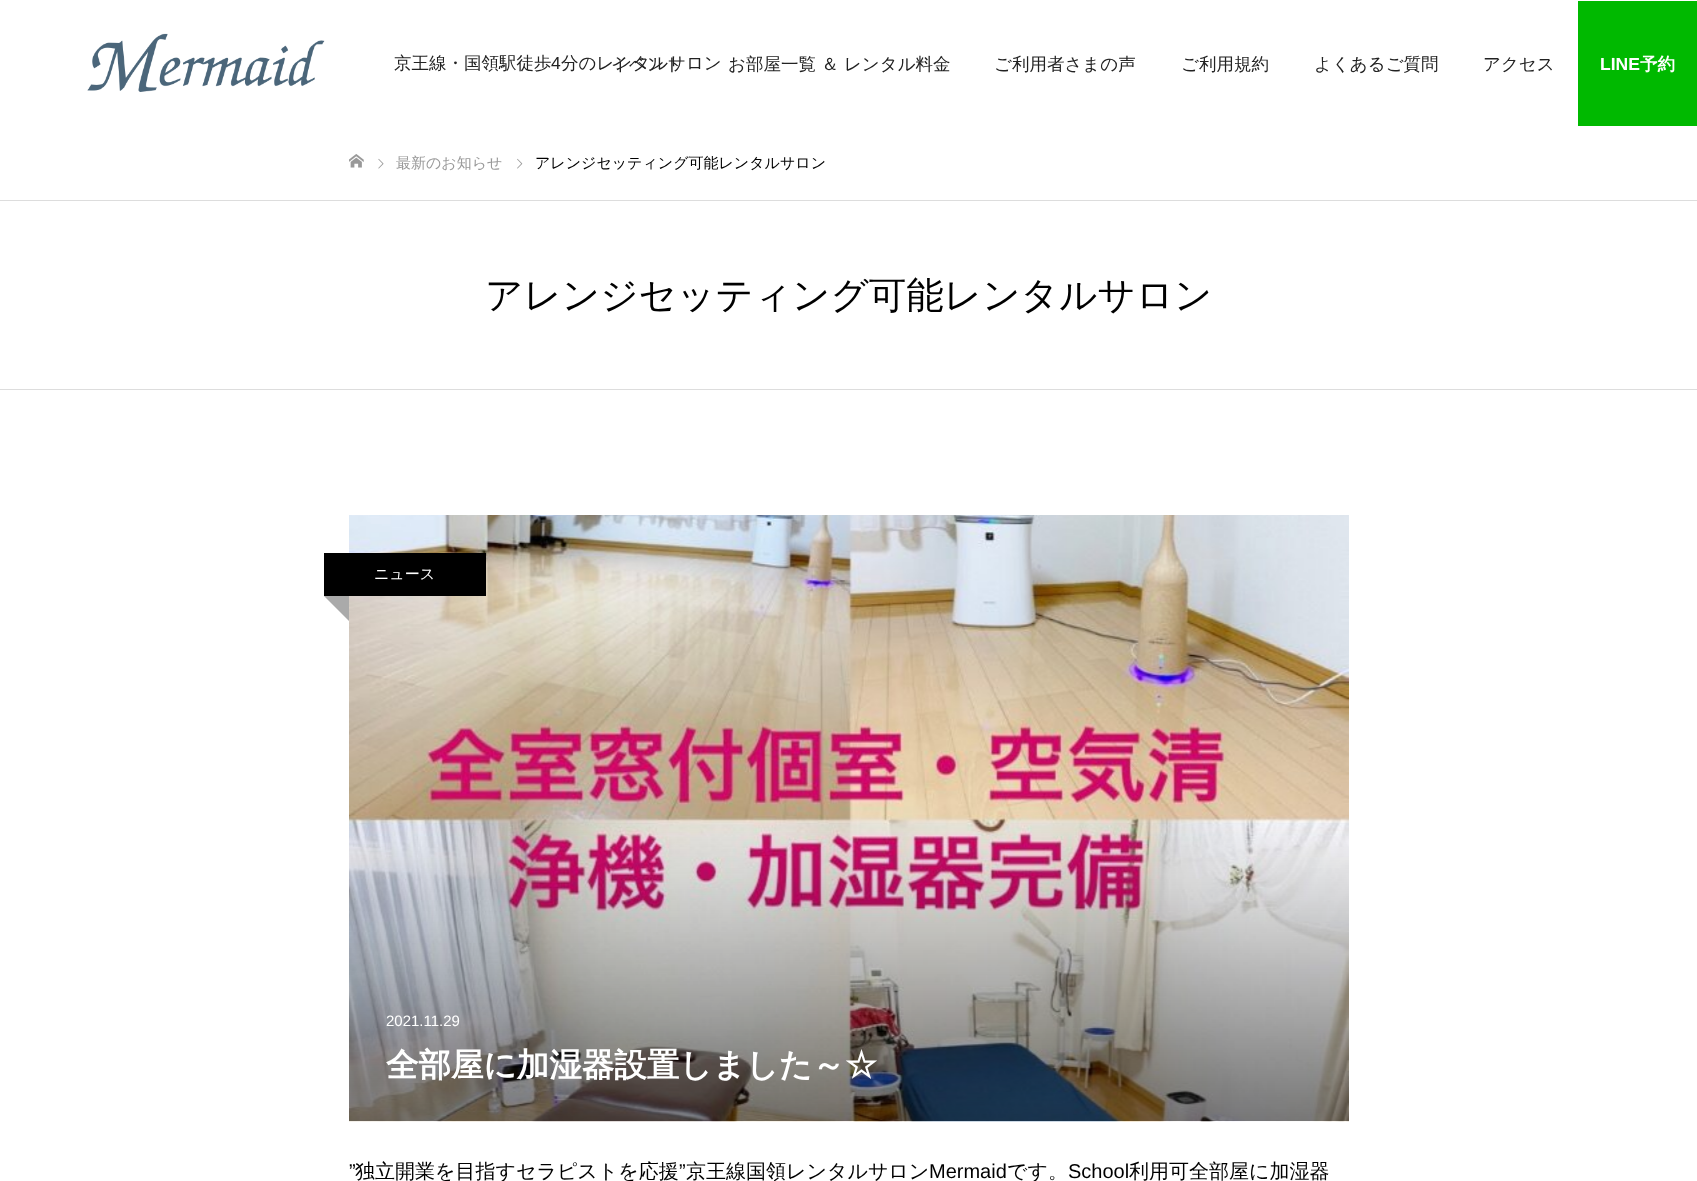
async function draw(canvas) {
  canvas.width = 1697;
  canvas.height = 1181;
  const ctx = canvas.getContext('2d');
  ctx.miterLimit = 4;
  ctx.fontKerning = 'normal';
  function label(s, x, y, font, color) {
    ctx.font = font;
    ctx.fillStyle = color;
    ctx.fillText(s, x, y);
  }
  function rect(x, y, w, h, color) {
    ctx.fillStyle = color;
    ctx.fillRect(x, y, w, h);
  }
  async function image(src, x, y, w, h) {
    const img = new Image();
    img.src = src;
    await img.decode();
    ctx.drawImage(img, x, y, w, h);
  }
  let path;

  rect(0, 0, 1697, 1181, '#fff');
  await image('assets/img1.png', 87, 33, 238, 59);
  label('京王線・国領駅徒歩', 394, 69, '500 17.5px WenQuanYi Zen Hei', '#222');
  label('4', 551, 69, '17.5px Liberation Sans', '#222');
  label('イベント', 611, 70, '500 17.5px WenQuanYi Zen Hei', '#222');
  label('分のレンタルサロン', 561, 69, '500 17.5px WenQuanYi Zen Hei', '#222');
  label('お部屋一覧 ＆ レンタル料金', 728, 70, '500 17.5px WenQuanYi Zen Hei', '#222');
  label('ご利用者さまの声', 994, 70, '500 17.5px WenQuanYi Zen Hei', '#222');
  label('ご利用規約', 1181, 70, '500 17.5px WenQuanYi Zen Hei', '#222');
  label('よくあるご質問', 1314, 70, '500 17.5px WenQuanYi Zen Hei', '#222');
  label('アクセス', 1483, 70, '500 17.5px WenQuanYi Zen Hei', '#222');
  rect(1578, 1, 119, 125, '#00b900');
  label('LINE', 1600, 70, 'bold 17.5px Liberation Sans', '#fff');
  label('予約', 1640, 70, 'bold 17.5px WenQuanYi Zen Hei', '#fff');
  rect(0, 200, 1697, 1, '#ddd');
  await image('assets/img2.png', 349, 154, 15, 14);
  await image('assets/img3.png', 378, 158, 6, 11);
  label('最新のお知らせ', 396, 168, '500 15px WenQuanYi Zen Hei', '#999');
  await image('assets/img4.png', 517, 158, 6, 11);
  label('アレンジセッティング可能レンタルサロン', 535, 168, '500 15px WenQuanYi Zen Hei', '#000');
  rect(0, 389, 1697, 1, '#ddd');
  label('アレンジセッティング可能レンタルサロン', 485, 308, '500 37.5px WenQuanYi Zen Hei', '#000');
  await image('assets/img5.png', 349, 515, 1000, 607);
  rect(324, 553, 162, 43, '#000');
  label('ニュース', 374, 579, '500 15px WenQuanYi Zen Hei', '#fff');
  ctx.fillStyle = '#aaa';
  path = new Path2D('M349 596V621L324 596Z');
  ctx.fill(path);
  label('2021.11.29', 386, 1026, '15px Liberation Sans', '#fff');
  label('全部屋に加湿器設置しました～☆', 386, 1076, 'bold 32.5px WenQuanYi Zen Hei', '#fff');
  label('”', 349, 1178, '20px Liberation Sans', '#000');
  label('独立開業を目指すセラピストを応援', 355, 1178, '500 20px WenQuanYi Zen Hei', '#000');
  label('”', 679, 1178, '20px Liberation Sans', '#000');
  label('京王線国領レンタルサロン', 686, 1178, '500 20px WenQuanYi Zen Hei', '#000');
  label('Mermaid', 929, 1178, '20px Liberation Sans', '#000');
  label('です。', 1007, 1178, '500 20px WenQuanYi Zen Hei', '#000');
  label('School', 1068, 1178, '20px Liberation Sans', '#000');
  label('利用可全部屋に加湿器', 1129, 1178, '500 20px WenQuanYi Zen Hei', '#000');
}

draw(document.querySelector('canvas'));
